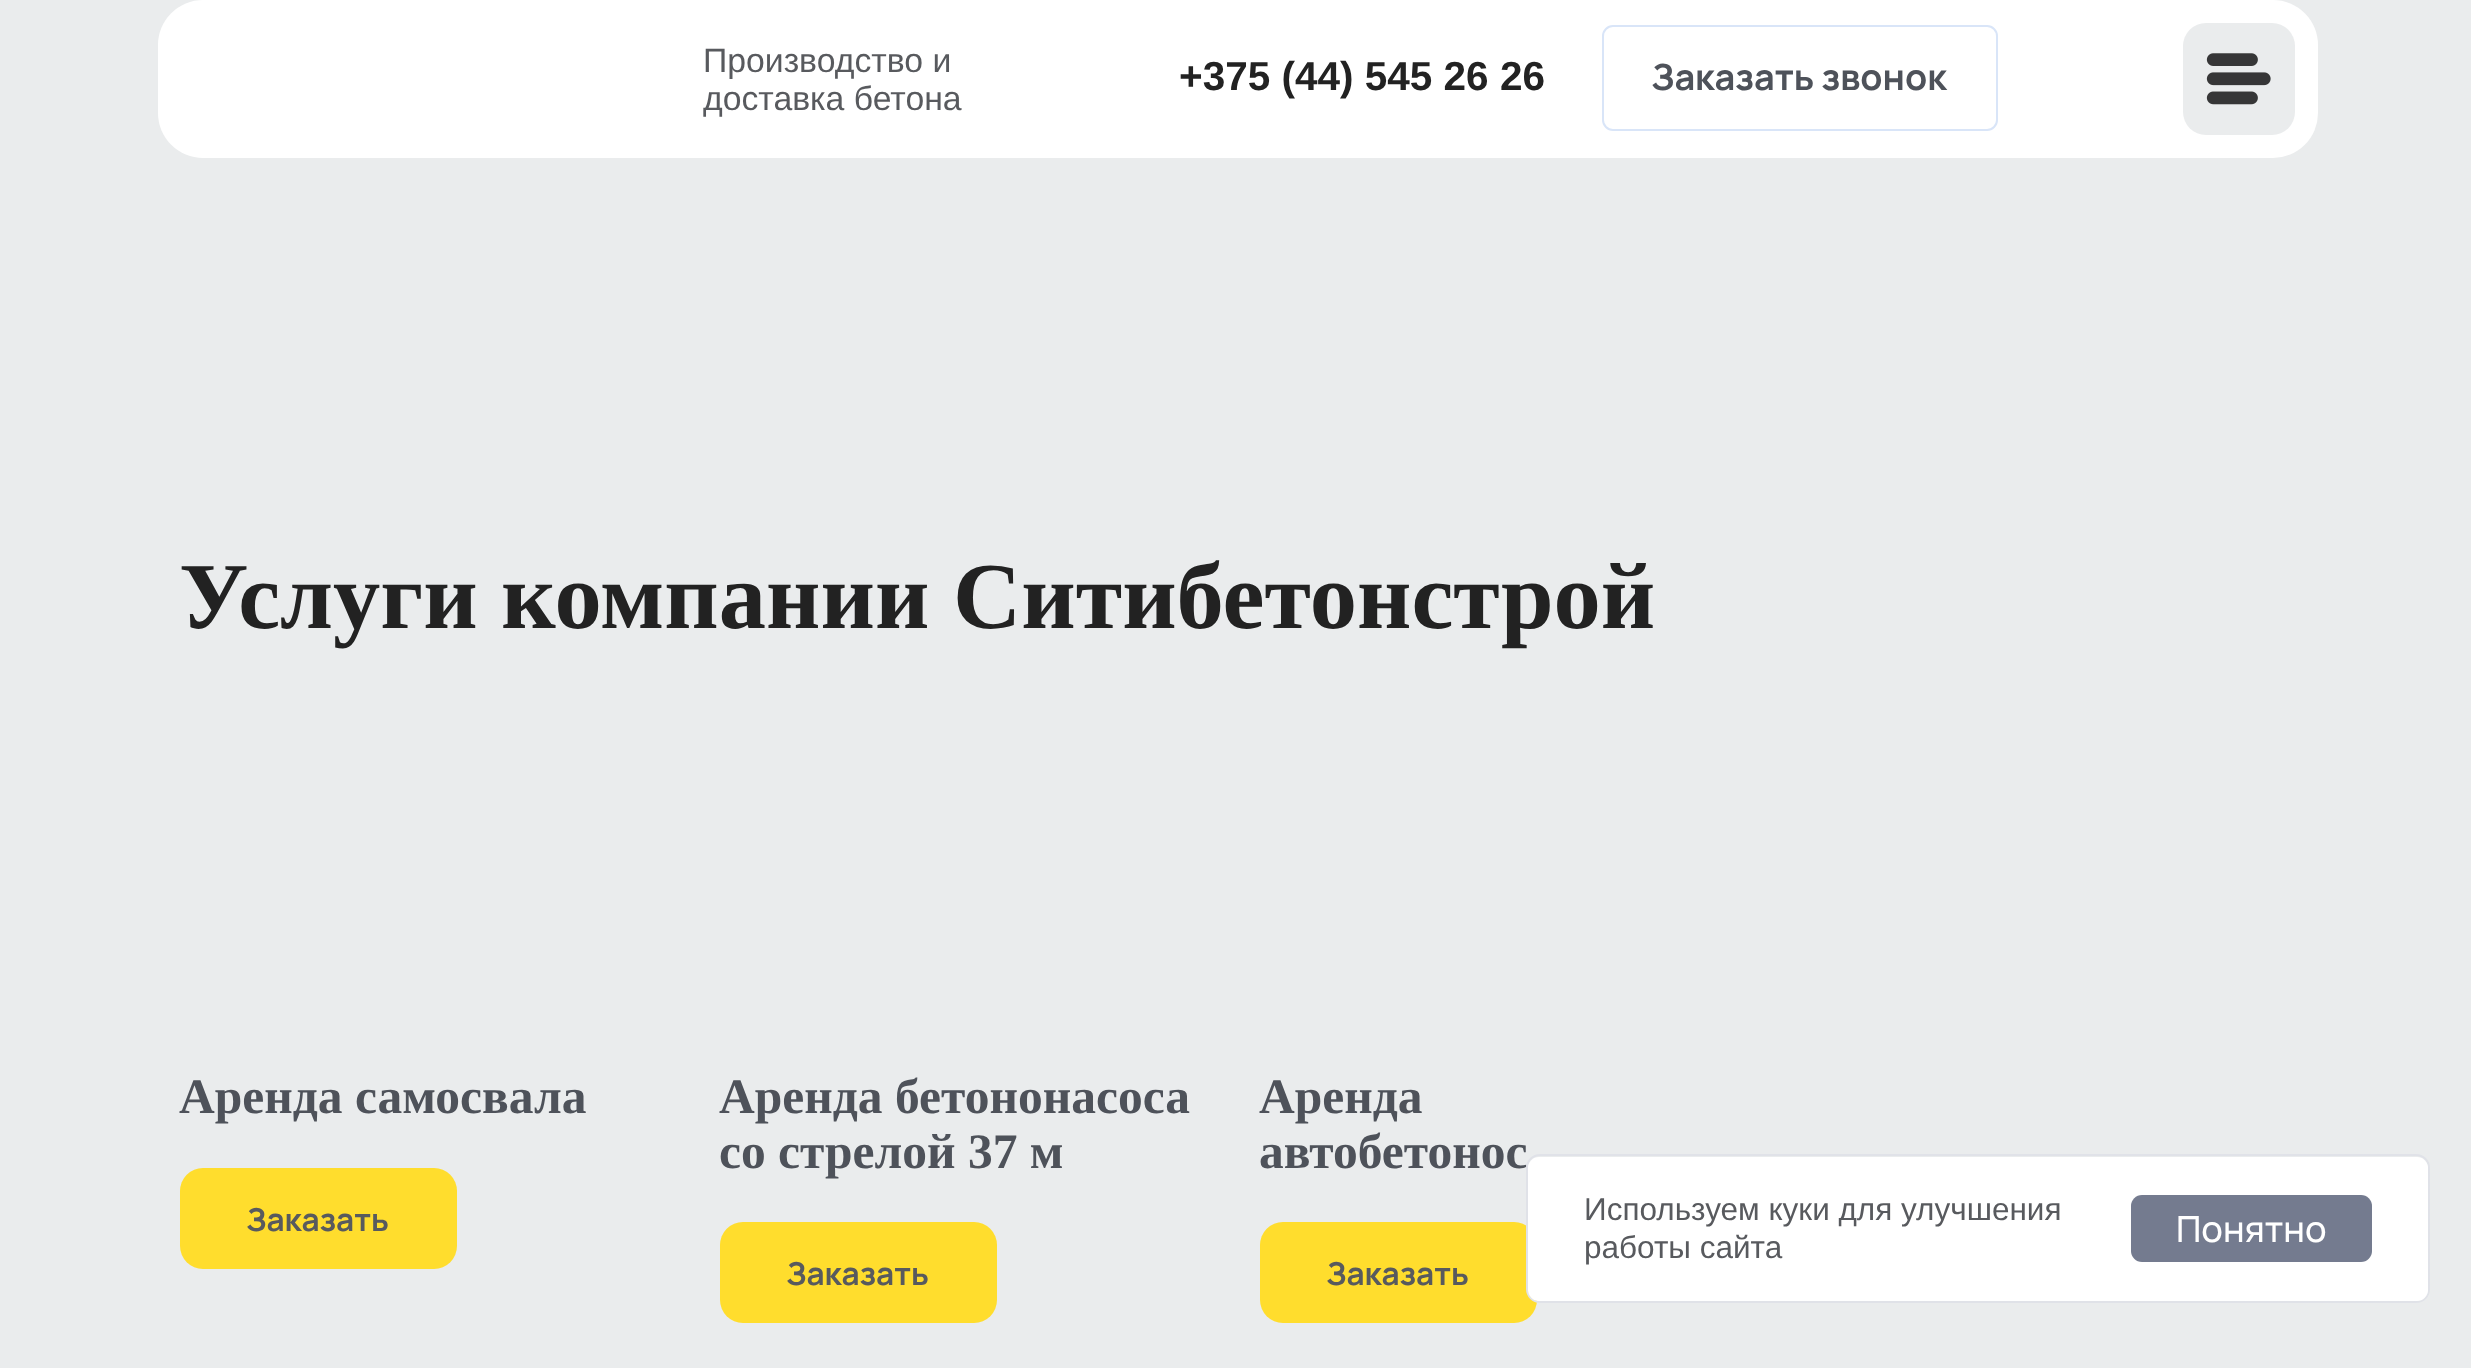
async function draw(canvas) {
  canvas.width = 2471;
  canvas.height = 1368;
  const ctx = canvas.getContext('2d');
  ctx.miterLimit = 4;
  ctx.fontKerning = 'normal';
  function label(s, x, y, font, color) {
    ctx.font = font;
    ctx.fillStyle = color;
    ctx.fillText(s, x, y);
  }
  function rect(x, y, w, h, color) {
    ctx.fillStyle = color;
    ctx.fillRect(x, y, w, h);
  }
  function roundedRect(x, y, w, h, r, color) {
    ctx.fillStyle = color;
    ctx.beginPath();
    ctx.roundRect(x, y, w, h, r);
    ctx.fill();
  }
  async function image(src, x, y, w, h) {
    const img = new Image();
    img.src = src;
    await img.decode();
    ctx.drawImage(img, x, y, w, h);
  }

  rect(0, 0, 2471, 1368, '#eaeced');
  roundedRect(158, 0, 2160, 158, 45, '#fff');
  label('Производство и', 703, 72, '33.75px Liberation Sans', '#585a5e');
  label('доставка бетона', 703, 110, '33.75px Liberation Sans', '#585a5e');
  roundedRect(2183, 23, 112, 112, 23, '#eaeced');
  label('+375 (44) 545 26 26', 1179, 90, 'bold 40.5px Liberation Sans', '#222');
  ctx.beginPath();
  ctx.roundRect(1603, 26, 394, 104, 10);
  ctx.strokeStyle = '#d9e5f8';
  ctx.lineWidth = 2;
  ctx.stroke();
  label('Заказать звонок', 1651, 90, 'bold 36px Manrope', '#4e525a');
  await image('assets/img1.png', 2206, 53, 65, 52);
  label('Услуги компании Ситибетонстрой', 179, 628, 'bold 94.5px Liberation Serif', '#222');
  label('Аренда самосвала', 179, 1113, 'bold 49.5px Liberation Serif', '#4e525a');
  roundedRect(180, 1168, 277, 101, 23, '#ffdd2d');
  label('Заказать', 246, 1231, 'bold 31.5px Manrope', '#585a5e');
  label('Аренда бетононасоса', 719, 1113, 'bold 49.5px Liberation Serif', '#4e525a');
  label('со стрелой 37 м', 719, 1168, 'bold 49.5px Liberation Serif', '#4e525a');
  roundedRect(720, 1222, 277, 101, 23, '#ffdd2d');
  label('Заказать', 786, 1285, 'bold 31.5px Manrope', '#585a5e');
  label('Аренда', 1259, 1113, 'bold 49.5px Liberation Serif', '#4e525a');
  label('автобетонос', 1259, 1168, 'bold 49.5px Liberation Serif', '#4e525a');
  roundedRect(1260, 1222, 277, 101, 23, '#ffdd2d');
  label('Заказать', 1326, 1285, 'bold 31.5px Manrope', '#585a5e');
  ctx.beginPath();
  ctx.roundRect(1527, 1155, 902, 147, 13);
  ctx.strokeStyle = '#e0e2e8';
  ctx.stroke();
  roundedRect(1528, 1157, 900, 144, 11, '#fff');
  label('Используем куки для улучшения', 1584, 1220, '31.5px Liberation Sans', '#585a5e');
  label('работы сайта', 1584, 1258, '31.5px Liberation Sans', '#585a5e');
  roundedRect(2131, 1195, 241, 67, 11, '#747b8f');
  label('Понятно', 2176, 1242, '500 36px Manrope', '#fff');
}

draw(document.querySelector('canvas'));
